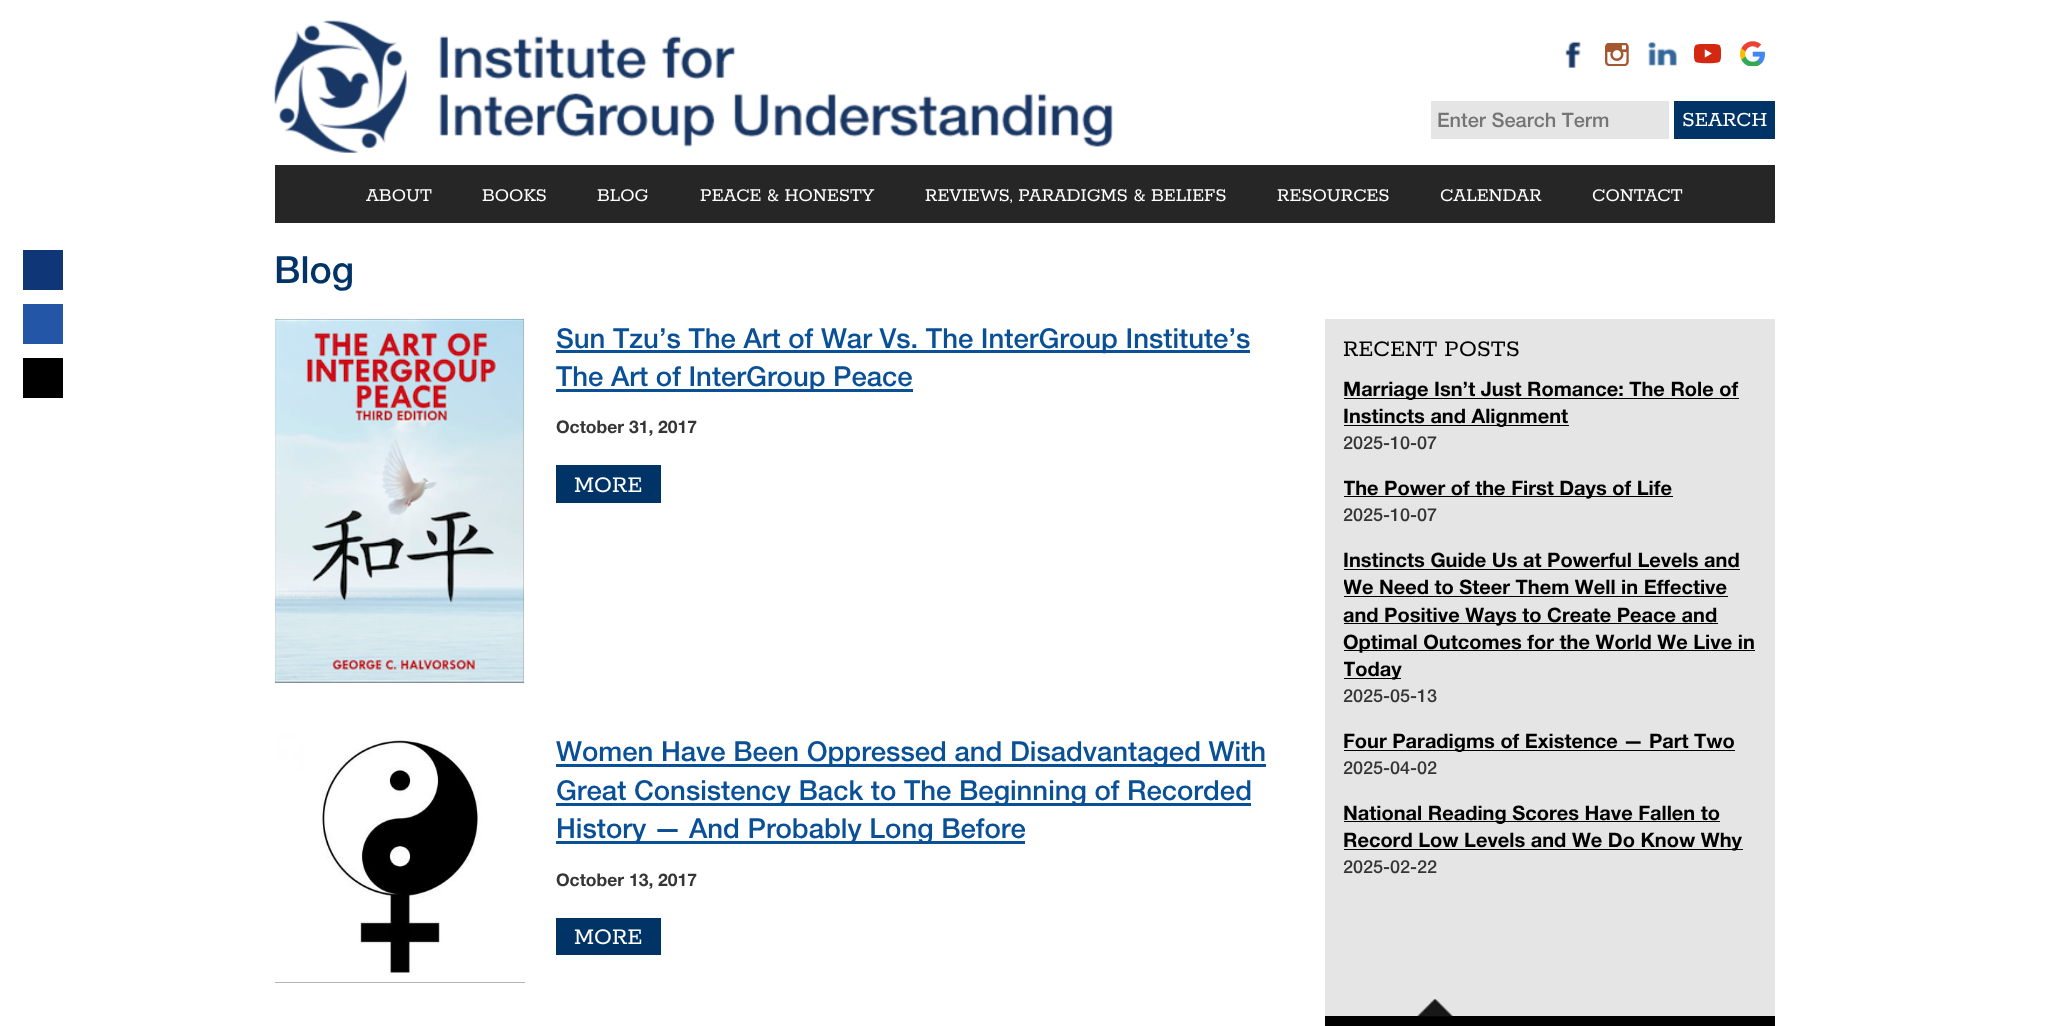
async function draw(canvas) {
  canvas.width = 2048;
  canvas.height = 1026;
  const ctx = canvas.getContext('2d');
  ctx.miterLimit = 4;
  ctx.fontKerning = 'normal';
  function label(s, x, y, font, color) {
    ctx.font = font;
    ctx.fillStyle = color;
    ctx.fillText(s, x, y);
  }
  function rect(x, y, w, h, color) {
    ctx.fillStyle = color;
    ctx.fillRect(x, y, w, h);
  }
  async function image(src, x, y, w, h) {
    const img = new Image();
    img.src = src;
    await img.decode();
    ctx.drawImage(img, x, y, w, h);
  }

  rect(0, 0, 2048, 1026, '#fff');
  await image('assets/img1.png', 274, 20, 839, 133);
  await image('assets/img2.png', 1565, 41, 16, 27);
  await image('assets/img3.png', 1605, 43, 24, 23);
  await image('assets/img4.png', 1648, 41, 29, 25);
  await image('assets/img5.png', 1694, 44, 27, 20);
  await image('assets/img6.png', 1740, 41, 25, 25);
  rect(1431, 101, 238, 38, '#e5e5e5');
  label('Enter Search Term', 1437, 127, '500 20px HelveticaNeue', '#757575');
  rect(1674, 101, 101, 38, '#036');
  label('SEARCH', 1682, 126, '22.5px Rokkitt', '#fff');
  rect(275, 165, 1500, 58, '#262626');
  label('ABOUT', 366, 201, '20px Rokkitt', '#fff');
  label('BOOKS', 482, 201, '20px Rokkitt', '#fff');
  label('BLOG', 597, 201, '20px Rokkitt', '#fff');
  label('PEACE & HONESTY', 700, 201, '20px Rokkitt', '#fff');
  label('REVIEWS, PARADIGMS & BELIEFS', 925, 201, '20px Rokkitt', '#fff');
  label('RESOURCES', 1277, 201, '20px Rokkitt', '#fff');
  label('CALENDAR', 1440, 201, '20px Rokkitt', '#fff');
  label('CONTACT', 1592, 201, '20px Rokkitt', '#fff');
  rect(23, 250, 40, 40, '#0f3778');
  rect(23, 304, 40, 40, '#2456a7');
  rect(23, 358, 40, 40, '#000');
  label('Blog', 274, 283, '500 37.5px HelveticaNeue', '#036');
  rect(275, 319, 249, 364, '#666');
  await image('assets/img7.png', 275, 318, 249, 365);
  rect(556, 350, 694, 3, '#095097');
  label('Sun Tzu’s The Art of War Vs. The InterGroup Institute’s', 556, 348, '500 27.5px HelveticaNeue', '#095097');
  rect(556, 389, 357, 3, '#095097');
  label('The Art of InterGroup Peace', 556, 386, '500 27.5px HelveticaNeue', '#095097');
  label('October 31, 2017', 556, 433, 'bold 17.5px HelveticaNeue', '#353535');
  rect(556, 465, 105, 38, '#036');
  label('MORE', 574, 492, '25px Rokkitt', '#fff');
  rect(275, 982, 250, 1, '#666');
  await image('assets/img8.png', 275, 733, 250, 250);
  rect(556, 764, 710, 3, '#095097');
  label('Women Have Been Oppressed and Disadvantaged With', 556, 761, '500 27.5px HelveticaNeue', '#095097');
  rect(556, 803, 695, 3, '#095097');
  label('Great Consistency Back to The Beginning of Recorded', 556, 800, '500 27.5px HelveticaNeue', '#095097');
  rect(556, 841, 469, 3, '#095097');
  label('History — And Probably Long Before', 556, 838, '500 27.5px HelveticaNeue', '#095097');
  label('October 13, 2017', 556, 886, 'bold 17.5px HelveticaNeue', '#353535');
  rect(556, 918, 105, 37, '#036');
  label('MORE', 574, 944, '25px Rokkitt', '#fff');
  rect(1325, 319, 450, 697, '#e5e5e5');
  label('RECENT POSTS', 1343, 356, '25px Rokkitt', '#000');
  rect(1344, 398, 395, 1, '#000');
  label('Marriage Isn’t Just Romance: The Role of', 1343, 396, 'bold 20px HelveticaNeue', '#000');
  rect(1344, 425, 225, 1, '#000');
  label('Instincts and Alignment', 1343, 423, 'bold 20px HelveticaNeue', '#000');
  label('2025-10-07', 1343, 449, '500 18px HelveticaNeue', '#353535');
  rect(1344, 496, 329, 1, '#000');
  ctx.save();
  ctx.beginPath();
  ctx.rect(1344, 338, 412, 642);
  ctx.clip();
  label('The Power of the First Days of Life', 1343, 495, 'bold 20px HelveticaNeue', '#000');
  ctx.restore();
  label('2025-10-07', 1343, 521, '500 18px HelveticaNeue', '#353535');
  label('Instincts Guide Us at Powerful Levels and', 1343, 567, 'bold 20px HelveticaNeue', '#000');
  rect(1344, 569, 396, 1, '#000');
  ctx.save();
  ctx.beginPath();
  ctx.rect(1344, 338, 412, 642);
  ctx.clip();
  label('We Need to Steer Them Well in Effective', 1343, 594, 'bold 20px HelveticaNeue', '#000');
  ctx.restore();
  rect(1344, 596, 384, 1, '#000');
  rect(1344, 623, 374, 1, '#000');
  label('and Positive Ways to Create Peace and', 1343, 622, 'bold 20px HelveticaNeue', '#000');
  rect(1344, 650, 411, 1, '#000');
  label('Optimal Outcomes for the World We Live in', 1343, 649, 'bold 20px HelveticaNeue', '#000');
  rect(1344, 678, 57, 1, '#000');
  ctx.save();
  ctx.beginPath();
  ctx.rect(1344, 338, 412, 642);
  ctx.clip();
  label('Today', 1343, 676, 'bold 20px HelveticaNeue', '#000');
  ctx.restore();
  label('2025-05-13', 1343, 702, '500 18px HelveticaNeue', '#353535');
  rect(1344, 750, 391, 1, '#000');
  label('Four Paradigms of Existence — Part Two', 1343, 748, 'bold 20px HelveticaNeue', '#000');
  label('2025-04-02', 1343, 774, '500 18px HelveticaNeue', '#353535');
  rect(1344, 821, 376, 1, '#000');
  label('National Reading Scores Have Fallen to', 1343, 820, 'bold 20px HelveticaNeue', '#000');
  rect(1344, 849, 399, 1, '#000');
  label('Record Low Levels and We Do Know Why', 1343, 847, 'bold 20px HelveticaNeue', '#000');
  label('2025-02-22', 1343, 873, '500 18px HelveticaNeue', '#353535');
  rect(1325, 1016, 450, 10, '#000');
  await image('assets/img9.png', 1417, 999, 36, 18);
}

draw(document.querySelector('canvas'));
